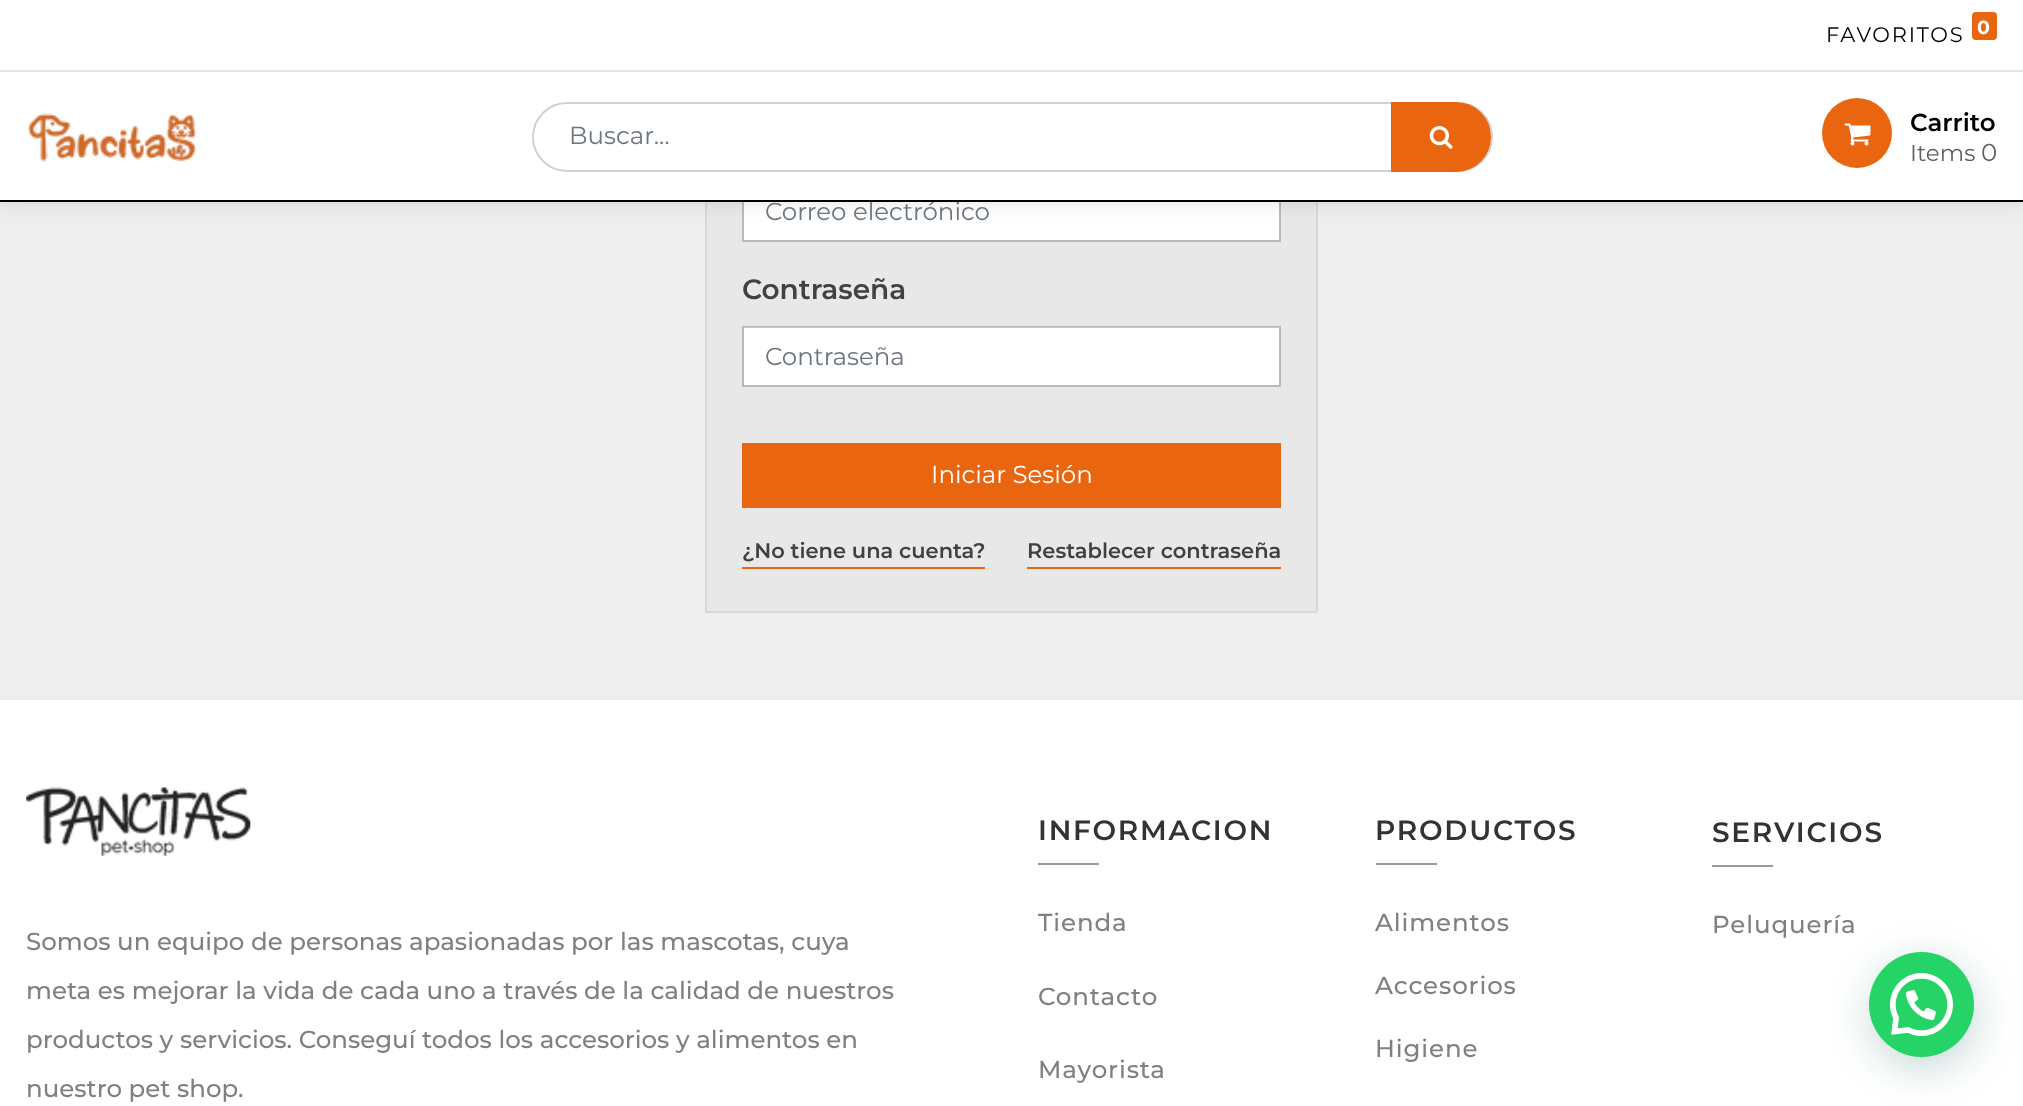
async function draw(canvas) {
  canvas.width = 2023;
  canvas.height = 1106;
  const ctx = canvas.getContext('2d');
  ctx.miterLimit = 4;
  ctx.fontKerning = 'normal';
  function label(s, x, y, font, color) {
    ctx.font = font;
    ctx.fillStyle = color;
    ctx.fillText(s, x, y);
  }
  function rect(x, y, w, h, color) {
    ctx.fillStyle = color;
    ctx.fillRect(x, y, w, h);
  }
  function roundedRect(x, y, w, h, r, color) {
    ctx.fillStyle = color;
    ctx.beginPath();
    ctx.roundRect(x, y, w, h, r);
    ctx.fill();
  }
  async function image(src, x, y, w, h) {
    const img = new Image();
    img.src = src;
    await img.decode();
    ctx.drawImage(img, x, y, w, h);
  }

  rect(0, 0, 2023, 1106, '#eee');
  rect(707, 202, 609, 409, '#e8e8e8');
  ctx.strokeStyle = '#d8d8d8';
  ctx.lineWidth = 2;
  ctx.strokeRect(706, 89, 611, 523);
  rect(744, 202, 535, 38, '#fff');
  ctx.strokeStyle = '#bababa';
  ctx.strokeRect(743, 181, 537, 60);
  ctx.fillStyle = '#0000001f';
  ctx.filter = 'blur(10.5px)';
  ctx.beginPath();
  ctx.rect(0, 0, 2023, 201);
  ctx.fill();
  ctx.filter = 'none';
  rect(0, 0, 2023, 200, '#fff');
  rect(0, 70, 2023, 2, '#e6e6e6');
  ctx.letterSpacing = '1.75px';
  label('FAVORITOS', 1826, 42, '21px Montserrat', '#000');
  roundedRect(1972, 12, 25, 28, 4, '#ea6510');
  label('0', 1977, 34, 'bold 19px Montserrat', '#fff');
  await image('assets/img1.png', 27, 113, 170, 49);
  ctx.beginPath();
  ctx.roundRect(533, 103, 959, 68, 34);
  ctx.strokeStyle = '#d1d1d1';
  ctx.stroke();
  ctx.letterSpacing = '0px';
  label('Buscar…', 569, 144, '24.5px Montserrat', '#6c757d');
  ctx.fillStyle = '#ea6510';
  ctx.beginPath();
  ctx.roundRect(1393, 104, 96, 66, [0, 33, 33, 0]);
  ctx.fill();
  ctx.strokeStyle = '#ea6510';
  ctx.lineWidth = 4;
  ctx.stroke();
  await image('assets/img2.png', 1429, 126, 24, 23);
  ctx.beginPath();
  ctx.arc(1857, 133, 35, 0, 2 * Math.PI);
  ctx.fill();
  await image('assets/img3.png', 1844, 123, 27, 23);
  label('Carrito', 1910, 131, '600 24.5px Montserrat', '#000');
  label('Items', 1910, 161, '23px Montserrat', '#616161');
  label('0', 1981, 161, '24.5px Montserrat', '#616161');
  label('Correo electrónico', 765, 220, '24.5px Montserrat', '#6c757d');
  rect(0, 200, 2023, 2, '#000');
  label('Contraseña', 742, 299, '600 28px Montserrat', '#414141');
  rect(744, 327, 535, 58, '#fff');
  ctx.strokeStyle = '#00000033';
  ctx.lineWidth = 2;
  ctx.strokeRect(743, 327, 537, 59);
  label('Contraseña', 765, 365, '24.5px Montserrat', '#6c757d');
  rect(742, 443, 539, 65, '#ea6510');
  label('Iniciar Sesión', 931, 483, '24.5px Montserrat', '#fff');
  rect(742, 567, 243, 2, '#ea6510');
  label('¿No tiene una cuenta?', 742, 558, '600 21px Montserrat', '#414141');
  rect(1027, 567, 254, 2, '#ea6510');
  label('Restablecer contraseña', 1027, 558, '600 21px Montserrat', '#414141');
  rect(0, 700, 2023, 406, '#fff');
  ctx.letterSpacing = '1.75px';
  label('INFORMACION', 1038, 840, '600 28px Montserrat', '#333');
  rect(1038, 863, 61, 2, '#999');
  ctx.letterSpacing = '0.9px';
  label('Tienda', 1038, 931, '500 24.5px Montserrat', '#808080');
  label('Contacto', 1038, 1005, '500 24.5px Montserrat', '#808080');
  label('Mayorista', 1038, 1078, '500 24.5px Montserrat', '#808080');
  ctx.letterSpacing = '1.75px';
  label('PRODUCTOS', 1375, 840, '600 28px Montserrat', '#333');
  rect(1376, 863, 61, 2, '#999');
  ctx.letterSpacing = '0.9px';
  label('Alimentos', 1375, 931, '500 24.5px Montserrat', '#808080');
  label('Accesorios', 1375, 994, '500 24.5px Montserrat', '#808080');
  label('Higiene', 1375, 1057, '500 24.5px Montserrat', '#808080');
  ctx.letterSpacing = '1.75px';
  label('SERVICIOS', 1712, 842, '600 28px Montserrat', '#333');
  rect(1712, 865, 61, 2, '#999');
  ctx.letterSpacing = '0.9px';
  label('Peluquería', 1712, 933, '500 24.5px Montserrat', '#808080');
  await image('assets/img4.png', 26, 787, 225, 69);
  ctx.letterSpacing = '0px';
  label('Somos un equipo de personas apasionadas por las mascotas, cuya', 26, 950, '500 24.5px Montserrat', '#808080');
  label('meta es mejorar la vida de cada uno a través de la calidad de nuestros', 26, 999, '500 24.5px Montserrat', '#808080');
  label('productos y servicios. Conseguí todos los accesorios y alimentos en', 26, 1048, '500 24.5px Montserrat', '#808080');
  label('nuestro pet shop.', 26, 1097, '500 24.5px Montserrat', '#808080');
  ctx.fillStyle = '#075e543d';
  ctx.filter = 'blur(21px)';
  ctx.beginPath();
  ctx.roundRect(1871, 963, 105, 105, 52.5);
  ctx.fill();
  ctx.filter = 'none';
  ctx.fillStyle = '#25d366';
  ctx.beginPath();
  ctx.arc(1921.5, 1004.5, 52.5, 0, 2 * Math.PI);
  ctx.fill();
  await image('assets/img5.png', 1890, 973, 63, 63);
}

draw(document.querySelector('canvas'));
